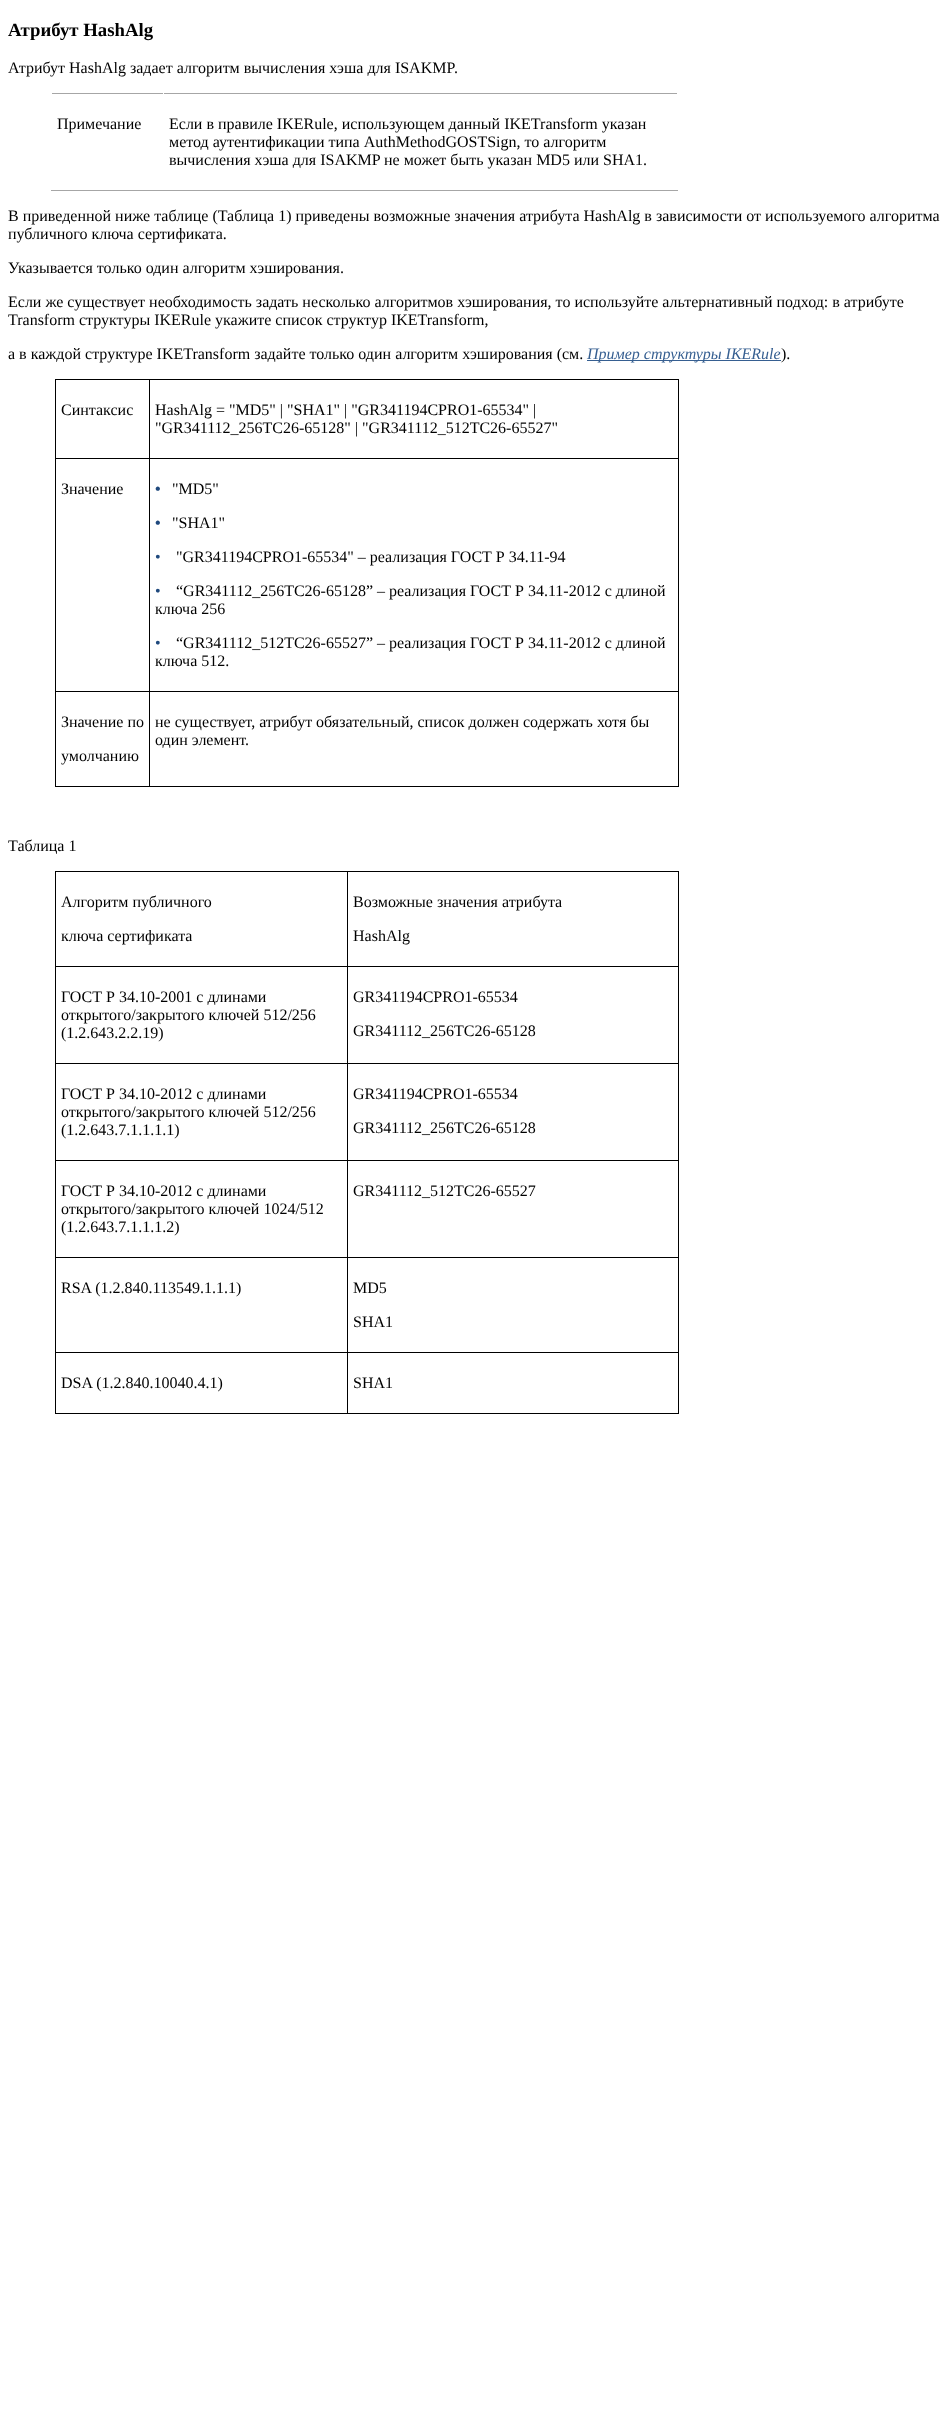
async function draw(canvas) {
  canvas.width = 950;
  canvas.height = 2413;
  const ctx = canvas.getContext('2d');
  ctx.miterLimit = 4;
  ctx.fontKerning = 'normal';
  function label(s, x, y, font, color) {
    ctx.font = font;
    ctx.fillStyle = color;
    ctx.fillText(s, x, y);
  }
  function rect(x, y, w, h, color) {
    ctx.fillStyle = color;
    ctx.fillRect(x, y, w, h);
  }
  let path;

  rect(0, 0, 950, 2413, '#fff');
  label('Атрибут HashAlg', 8, 36, 'bold 18.75px Liberation Serif', '#000');
  label('Атрибут HashAlg задает алгоритм вычисления хэша для ISAKMP', 8, 73, '16px Liberation Serif', '#000');
  label('.', 454, 73, '16px Liberation Serif', '#000');
  rect(51, 93, 627, 1, '#a6a6a6');
  path = new Path2D('M163.5 93V191');
  ctx.strokeStyle = '#fff';
  ctx.setLineDash([1, 1]);
  ctx.stroke(path);
  rect(51, 190, 627, 1, '#a6a6a6');
  path = new Path2D('M51.5 93V191');
  ctx.stroke(path);
  label('Примечание', 57, 129, '16px Liberation Serif', '#000');
  path = new Path2D('M677.5 93V191');
  ctx.stroke(path);
  label('Если в правиле IKERule, использующем данный IKETransform указан', 169, 129, '16px Liberation Serif', '#000');
  label('метод аутентификации типа AuthMethodGOSTSign, то алгоритм', 169, 147, '16px Liberation Serif', '#000');
  label('вычисления хэша для ISAKMP', 169, 165, '16px Liberation Serif', '#000');
  label('не может быть указан MD5 или SHA1.', 384, 165, '16px Liberation Serif', '#000');
  label('В приведенной ниже таблице (Таблица 1) приведены возможные значения атрибута HashAlg в зависимости от используемого алгоритма', 8, 221, '16px Liberation Serif', '#000');
  label('публичного ключа сертификата.', 8, 239, '16px Liberation Serif', '#000');
  label('Указывается только один алгоритм хэширования.', 8, 273, '16px Liberation Serif', '#000');
  label('Если же существует необходимость задать несколько алгоритмов хэширования, то используйте альтернативный подход: в атрибуте', 8, 307, '16px Liberation Serif', '#000');
  label('Transform структуры IKERule укажите список структур IKETransform,', 8, 325, '16px Liberation Serif', '#000');
  label('а в каждой структуре IKETransform задайте только один алгоритм хэширования (см.', 8, 359, '16px Liberation Serif', '#000');
  rect(587, 360, 194, 1, '#365f91');
  label('Пример структуры IKERule', 587, 359, 'italic 16px Liberation Serif', '#365f91');
  label(').', 781, 359, '16px Liberation Serif', '#000');
  ctx.strokeStyle = '#000';
  ctx.setLineDash([]);
  ctx.strokeRect(55.5, 379.5, 94, 79);
  label('Синтаксис', 61, 415, '16px Liberation Serif', '#000');
  rect(150, 379, 529, 1, '#000');
  rect(678, 379, 1, 408, '#000');
  rect(150, 458, 529, 1, '#000');
  label('HashAlg = "MD5" | "SHA1" | "GR341194CPRO1-65534" |', 155, 415, '16px Liberation Serif', '#000');
  label('"GR341112_256TC26-65128" | "GR341112_512TC26-65527"', 155, 433, '16px Liberation Serif', '#000');
  rect(149, 459, 1, 328, '#000');
  rect(55, 691, 624, 1, '#000');
  rect(55, 459, 1, 233, '#000');
  label('Значение', 61, 494, '16px Liberation Serif', '#000');
  label('•', 155, 494, '16px Liberation Sans', '#1f497d');
  label('"MD5"', 172, 494, '16px Liberation Serif', '#000');
  label('•', 155, 528, '16px Liberation Sans', '#1f497d');
  label('"SHA1"', 172, 528, '16px Liberation Serif', '#000');
  label('•', 155, 562, '16px Liberation Serif', '#1f497d');
  label('"GR341194CPRO1-65534" – реализация ГОСТ Р 34.11-94', 176, 562, '16px Liberation Serif', '#000');
  label('•', 155, 596, '16px Liberation Serif', '#1f497d');
  label('“GR341112_256TC26-65128” – реализация ГОСТ Р 34.11-2012 с длиной', 176, 596, '16px Liberation Serif', '#000');
  label('ключа 256', 155, 614, '16px Liberation Serif', '#000');
  label('•', 155, 648, '16px Liberation Serif', '#1f497d');
  label('“GR341112_512TC26-65527” – реализация ГОСТ Р 34.11-2012 с длиной', 176, 648, '16px Liberation Serif', '#000');
  label('ключа 512.', 155, 666, '16px Liberation Serif', '#000');
  rect(55, 786, 624, 1, '#000');
  rect(55, 692, 1, 95, '#000');
  label('Значение по', 61, 727, '16px Liberation Serif', '#000');
  label('умолчанию', 61, 761, '16px Liberation Serif', '#000');
  label('не существует, атрибут обязательный, список должен содержать хотя бы', 155, 727, '16px Liberation Serif', '#000');
  label('один элемент.', 155, 745, '16px Liberation Serif', '#000');
  label('Таблица 1', 8, 851, '16px Liberation Serif', '#000');
  ctx.strokeRect(55.5, 871.5, 292, 95);
  label('Алгоритм публичного', 61, 907, '16px Liberation Serif', '#000');
  label('ключа сертификата', 61, 941, '16px Liberation Serif', '#000');
  rect(348, 871, 331, 1, '#000');
  rect(678, 871, 1, 543, '#000');
  rect(348, 966, 331, 1, '#000');
  label('Возможные значения атрибута', 353, 907, '16px Liberation Serif', '#000');
  label('HashAlg', 353, 941, '16px Liberation Serif', '#000');
  rect(347, 967, 1, 447, '#000');
  rect(55, 1063, 624, 1, '#000');
  rect(55, 967, 1, 97, '#000');
  label('ГОСТ Р 34.10-2001 с длинами', 61, 1002, '16px Liberation Serif', '#000');
  label('открытого/закрытого ключей 512/256', 61, 1020, '16px Liberation Serif', '#000');
  label('(1.2.643.2.2.19)', 61, 1038, '16px Liberation Serif', '#000');
  label('GR341194CPRO1-65534', 353, 1002, '16px Liberation Serif', '#000');
  label('GR341112_256TC26-65128', 353, 1036, '16px Liberation Serif', '#000');
  rect(55, 1160, 624, 1, '#000');
  rect(55, 1064, 1, 97, '#000');
  label('ГОСТ Р 34.10-2012 с длинами', 61, 1099, '16px Liberation Serif', '#000');
  label('открытого/закрытого ключей 512/256', 61, 1117, '16px Liberation Serif', '#000');
  label('(1.2.643.7.1.1.1.1)', 61, 1135, '16px Liberation Serif', '#000');
  label('GR341194CPRO1-65534', 353, 1099, '16px Liberation Serif', '#000');
  label('GR341112_256TC26-65128', 353, 1133, '16px Liberation Serif', '#000');
  rect(55, 1257, 624, 1, '#000');
  rect(55, 1161, 1, 97, '#000');
  label('ГОСТ Р 34.10-2012 с длинами', 61, 1196, '16px Liberation Serif', '#000');
  label('открытого/закрытого ключей 1024/512', 61, 1214, '16px Liberation Serif', '#000');
  label('(1.2.643.7.1.1.1.2)', 61, 1232, '16px Liberation Serif', '#000');
  label('GR341112_512TC26-65527', 353, 1196, '16px Liberation Serif', '#000');
  rect(55, 1352, 624, 1, '#000');
  rect(55, 1258, 1, 95, '#000');
  label('RSA (1.2.840.113549.1.1.1)', 61, 1293, '16px Liberation Serif', '#000');
  label('MD5', 353, 1293, '16px Liberation Serif', '#000');
  label('SHA1', 353, 1327, '16px Liberation Serif', '#000');
  rect(55, 1413, 624, 1, '#000');
  rect(55, 1353, 1, 61, '#000');
  label('DSA (1.2.840.10040.4.1)', 61, 1388, '16px Liberation Serif', '#000');
  label('SHA1', 353, 1388, '16px Liberation Serif', '#000');
}

draw(document.querySelector('canvas'));
